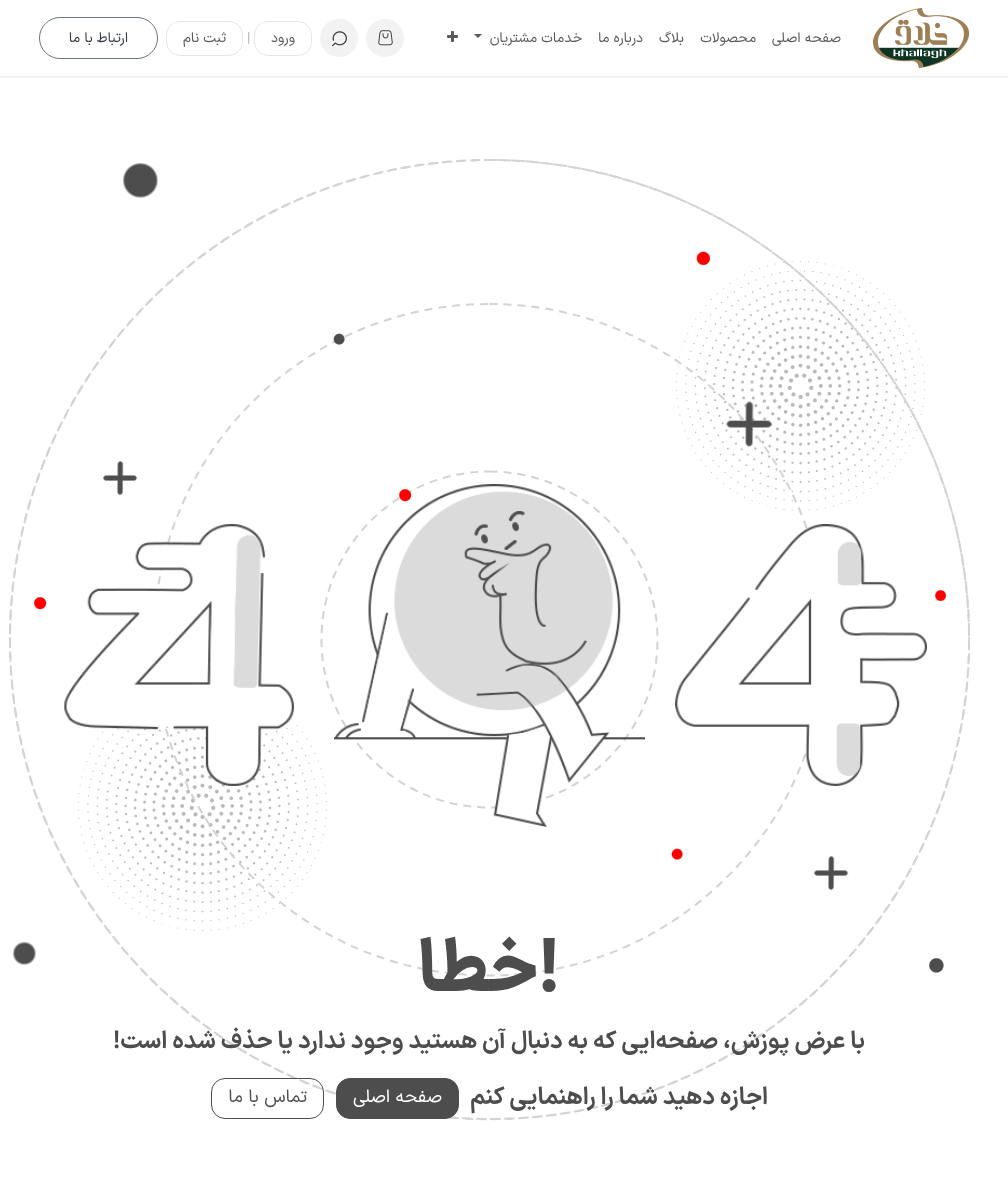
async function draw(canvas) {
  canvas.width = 1008;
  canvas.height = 1199;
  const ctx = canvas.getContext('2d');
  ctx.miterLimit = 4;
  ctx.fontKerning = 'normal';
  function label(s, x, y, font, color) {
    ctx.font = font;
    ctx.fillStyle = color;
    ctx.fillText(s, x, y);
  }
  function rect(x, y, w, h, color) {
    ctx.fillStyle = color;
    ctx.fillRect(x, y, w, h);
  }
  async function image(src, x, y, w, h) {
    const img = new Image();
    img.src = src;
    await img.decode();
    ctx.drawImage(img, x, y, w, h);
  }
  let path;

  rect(0, 0, 1008, 1199, '#fff');
  ctx.save();
  ctx.beginPath();
  ctx.rect(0, 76, 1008, 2);
  ctx.clip();
  ctx.fillStyle = '#0000001a';
  ctx.filter = 'blur(1.5px)';
  ctx.beginPath();
  ctx.rect(0, 1, 1008, 76);
  ctx.fill();
  ctx.filter = 'none';
  ctx.restore();
  await image('assets/img1.png', 873, 8, 96, 60);
  ctx.direction = 'rtl';
  label('صفحه اصلی', 841, 42, '14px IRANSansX', '#595959');
  label('محصولات', 756, 42, '14px IRANSansX', '#595959');
  label('بلاگ', 684, 42, '14px IRANSansX', '#595959');
  label('درباره ما', 643, 42, '14px IRANSansX', '#595959');
  label('خدمات مشتریان', 582, 42, '14px IRANSansX', '#595959');
  path = new Path2D('M474 34H482L478 38Z');
  ctx.fill(path);
  await image('assets/img2.png', 447, 31, 11, 11);
  ctx.fillStyle = '#f2f2f2';
  ctx.beginPath();
  ctx.arc(385, 38, 19, 0, 2 * Math.PI);
  ctx.fill();
  await image('assets/img3.png', 378, 30, 15, 16);
  ctx.beginPath();
  ctx.arc(339, 38, 19, 0, 2 * Math.PI);
  ctx.fill();
  await image('assets/img4.png', 332, 31, 15, 16);
  ctx.beginPath();
  ctx.roundRect(254.5, 21.5, 57, 34, 13.5);
  ctx.strokeStyle = '#e6e6e6';
  ctx.stroke();
  label('ورود', 295, 42, '14px IRANSansX', '#595959');
  ctx.direction = 'ltr';
  label('|', 247, 42, '14px IRANSansX', '#adb5bd');
  ctx.beginPath();
  ctx.roundRect(166.5, 21.5, 76, 34, 13.5);
  ctx.stroke();
  ctx.direction = 'rtl';
  label('ثبت نام', 226, 42, '14px IRANSansX', '#595959');
  ctx.beginPath();
  ctx.roundRect(39.5, 17.5, 118, 41, 20.5);
  ctx.strokeStyle = '#6c757d';
  ctx.stroke();
  label('ارتباط با ما', 128, 42, '14px IRANSansX', '#343a40');
  await image('assets/img5.png', 78, 261, 847, 670);
  path = new Path2D('M489.5 304C675 304 825.5 454 825.5 639.5C825.5 825 675 975.5 489.5 975.5C304 975.5 154 825 154 639.5C154 454 304 304 489.5 304Z');
  ctx.strokeStyle = '#d3d3d3';
  ctx.lineWidth = 2;
  ctx.setLineDash([8, 6]);
  ctx.stroke(path);
  path = new Path2D('M489.5 471.5C582.5 471.5 657.5 547 657.5 639.5C657.5 732.5 582.5 807.5 489.5 807.5C397 807.5 321.5 732.5 321.5 639.5C321.5 547 397 471.5 489.5 471.5Z');
  ctx.stroke(path);
  await image('assets/img6.png', 9, 159, 961, 962);
  path = new Path2D('M489.5 160C754.5 160 969 374.5 969 639.5C969 904.5 754.5 1119 489.5 1119C224.5 1119 10 904.5 10 639.5C10 374.5 224.5 160 489.5 160Z');
  ctx.stroke(path);
  await image('assets/img7.png', 334, 484, 311, 343);
  await image('assets/img8.png', 675, 524, 252, 262);
  await image('assets/img9.png', 474, 511, 55, 39);
  await image('assets/img10.png', 64, 524, 231, 262);
  ctx.direction = 'ltr';
  label('!', 538, 991, '800 72px IRANSansX', '#4d4d4d');
  ctx.direction = 'rtl';
  label('خطا', 538, 991, '800 72px IRANSansX', '#4d4d4d');
  label('با عرض پوزش، صفحه‌ایی که به دنبال آن هستید وجود ندارد یا حذف شده است!', 865, 1048, 'bold 24px IRANSansX', '#4d4d4d');
  label('اجازه دهید شما را راهنمایی کنم', 768, 1104, 'bold 24px IRANSansX', '#4d4d4d');
  ctx.beginPath();
  ctx.roundRect(336.5, 1078.5, 122, 40, 13.5);
  ctx.fill();
  ctx.strokeStyle = '#4d4d4d';
  ctx.lineWidth = 1;
  ctx.setLineDash([]);
  ctx.stroke();
  label('صفحه اصلی', 442, 1102, '18px IRANSansX', '#fff');
  ctx.beginPath();
  ctx.roundRect(211.5, 1078.5, 112, 40, 13.5);
  ctx.stroke();
  label('تماس با ما', 307, 1102, '18px IRANSansX', '#4d4d4d');
}

draw(document.querySelector('canvas'));
